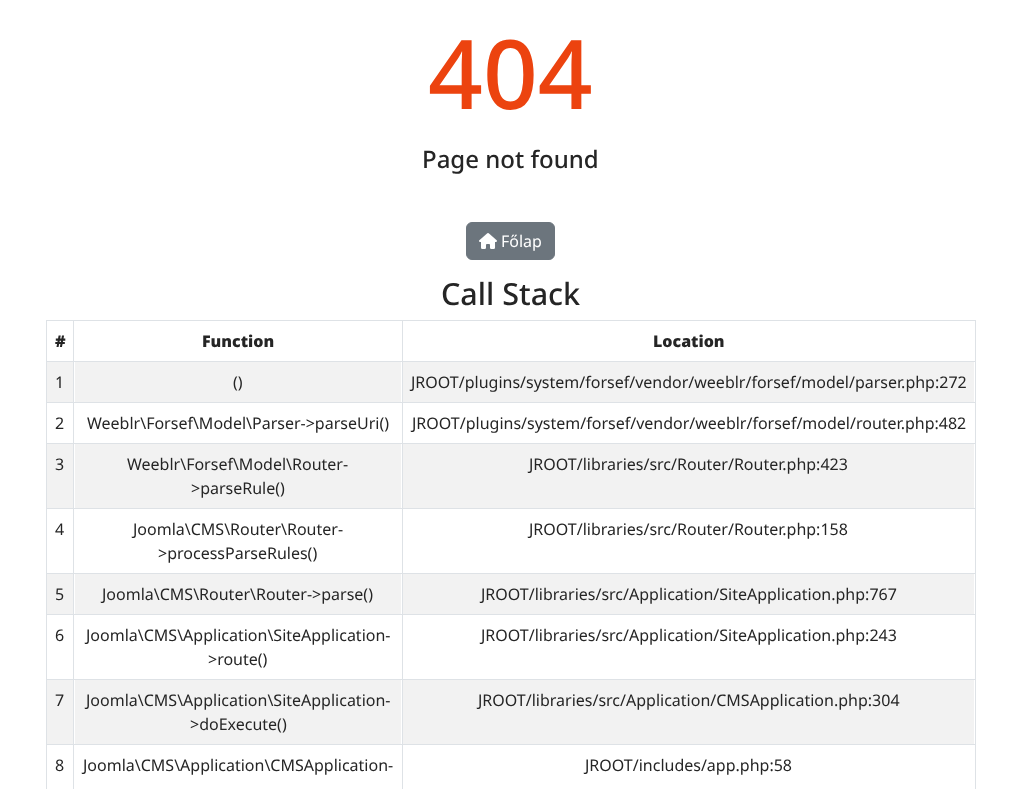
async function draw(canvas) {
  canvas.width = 1021;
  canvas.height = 789;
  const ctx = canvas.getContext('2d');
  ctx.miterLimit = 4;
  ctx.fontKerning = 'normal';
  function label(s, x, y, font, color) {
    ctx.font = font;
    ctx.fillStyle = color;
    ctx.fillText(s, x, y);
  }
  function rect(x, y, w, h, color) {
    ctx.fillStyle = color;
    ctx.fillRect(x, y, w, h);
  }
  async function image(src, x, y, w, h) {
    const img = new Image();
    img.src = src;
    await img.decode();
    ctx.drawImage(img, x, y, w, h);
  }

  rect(0, 0, 1021, 789, '#fff');
  label('404', 428, 109, '500 96px Noto Sans', '#ec430f');
  label('Page not found', 422, 168, '500 24px Noto Sans', '#252525');
  ctx.fillStyle = '#6c757d';
  ctx.beginPath();
  ctx.roundRect(466.5, 222.5, 88, 37, 5.5);
  ctx.fill();
  ctx.strokeStyle = '#6c757d';
  ctx.stroke();
  await image('assets/img1.png', 479, 233, 18, 16);
  label('Főlap', 501, 247, '16px Noto Sans', '#fff');
  label('Call Stack', 441, 305, '500 30.5px Noto Sans', '#252525');
  rect(46, 320, 930, 1, '#dee2e6');
  label('#', 55, 347, '900 16px Noto Sans', '#252525');
  label('Function', 202, 347, '900 16px Noto Sans', '#252525');
  label('Location', 653, 347, '900 16px Noto Sans', '#252525');
  rect(46, 361, 930, 1, '#dee2e6');
  rect(47, 362, 26, 40, '#f2f2f2');
  label('1', 55, 388, '16px Noto Sans', '#252525');
  rect(75, 362, 326, 40, '#f2f2f2');
  label('()', 233, 388, '16px Noto Sans', '#252525');
  rect(403, 362, 571, 40, '#f2f2f2');
  label('JROOT/plugins/system/forsef/vendor/weeblr/forsef/model/parser.php:272', 411, 388, '16px Noto Sans', '#252525');
  rect(46, 402, 930, 1, '#dee2e6');
  label('2', 55, 429, '16px Noto Sans', '#252525');
  label('Weeblr\\Forsef\\Model\\Parser->parseUri()', 87, 429, '16px Noto Sans', '#252525');
  label('JROOT/plugins/system/forsef/vendor/weeblr/forsef/model/router.php:482', 412, 429, '16px Noto Sans', '#252525');
  rect(46, 443, 930, 1, '#dee2e6');
  rect(47, 444, 26, 64, '#f2f2f2');
  label('3', 55, 470, '16px Noto Sans', '#252525');
  rect(75, 444, 326, 64, '#f2f2f2');
  label('Weeblr\\Forsef\\Model\\Router-', 127, 470, '16px Noto Sans', '#252525');
  label('>parseRule()', 191, 494, '16px Noto Sans', '#252525');
  rect(403, 444, 571, 64, '#f2f2f2');
  label('JROOT/libraries/src/Router/Router.php:423', 529, 470, '16px Noto Sans', '#252525');
  rect(46, 508, 930, 1, '#dee2e6');
  label('4', 55, 535, '16px Noto Sans', '#252525');
  label('Joomla\\CMS\\Router\\Router-', 133, 535, '16px Noto Sans', '#252525');
  label('>processParseRules()', 158, 559, '16px Noto Sans', '#252525');
  label('JROOT/libraries/src/Router/Router.php:158', 529, 535, '16px Noto Sans', '#252525');
  rect(46, 573, 930, 1, '#dee2e6');
  rect(47, 574, 26, 40, '#f2f2f2');
  label('5', 55, 600, '16px Noto Sans', '#252525');
  rect(75, 574, 326, 40, '#f2f2f2');
  label('Joomla\\CMS\\Router\\Router->parse()', 102, 600, '16px Noto Sans', '#252525');
  rect(403, 574, 571, 40, '#f2f2f2');
  label('JROOT/libraries/src/Application/SiteApplication.php:767', 481, 600, '16px Noto Sans', '#252525');
  rect(46, 614, 930, 1, '#dee2e6');
  label('6', 55, 641, '16px Noto Sans', '#252525');
  label('Joomla\\CMS\\Application\\SiteApplication-', 86, 641, '16px Noto Sans', '#252525');
  label('>route()', 208, 665, '16px Noto Sans', '#252525');
  label('JROOT/libraries/src/Application/SiteApplication.php:243', 481, 641, '16px Noto Sans', '#252525');
  rect(46, 679, 930, 1, '#dee2e6');
  rect(47, 680, 26, 64, '#f2f2f2');
  label('7', 55, 706, '16px Noto Sans', '#252525');
  rect(75, 680, 326, 64, '#f2f2f2');
  label('Joomla\\CMS\\Application\\SiteApplication-', 86, 706, '16px Noto Sans', '#252525');
  label('>doExecute()', 190, 730, '16px Noto Sans', '#252525');
  rect(403, 680, 571, 64, '#f2f2f2');
  label('JROOT/libraries/src/Application/CMSApplication.php:304', 478, 706, '16px Noto Sans', '#252525');
  rect(46, 744, 930, 1, '#dee2e6');
  rect(46, 320, 1, 469, '#dee2e6');
  label('8', 55, 771, '16px Noto Sans', '#252525');
  rect(73, 320, 1, 469, '#dee2e6');
  label('Joomla\\CMS\\Application\\CMSApplication-', 83, 771, '16px Noto Sans', '#252525');
  rect(975, 320, 1, 469, '#dee2e6');
  rect(402, 320, 1, 469, '#dee2e6');
  label('JROOT/includes/app.php:58', 585, 771, '16px Noto Sans', '#252525');
}

draw(document.querySelector('canvas'));
